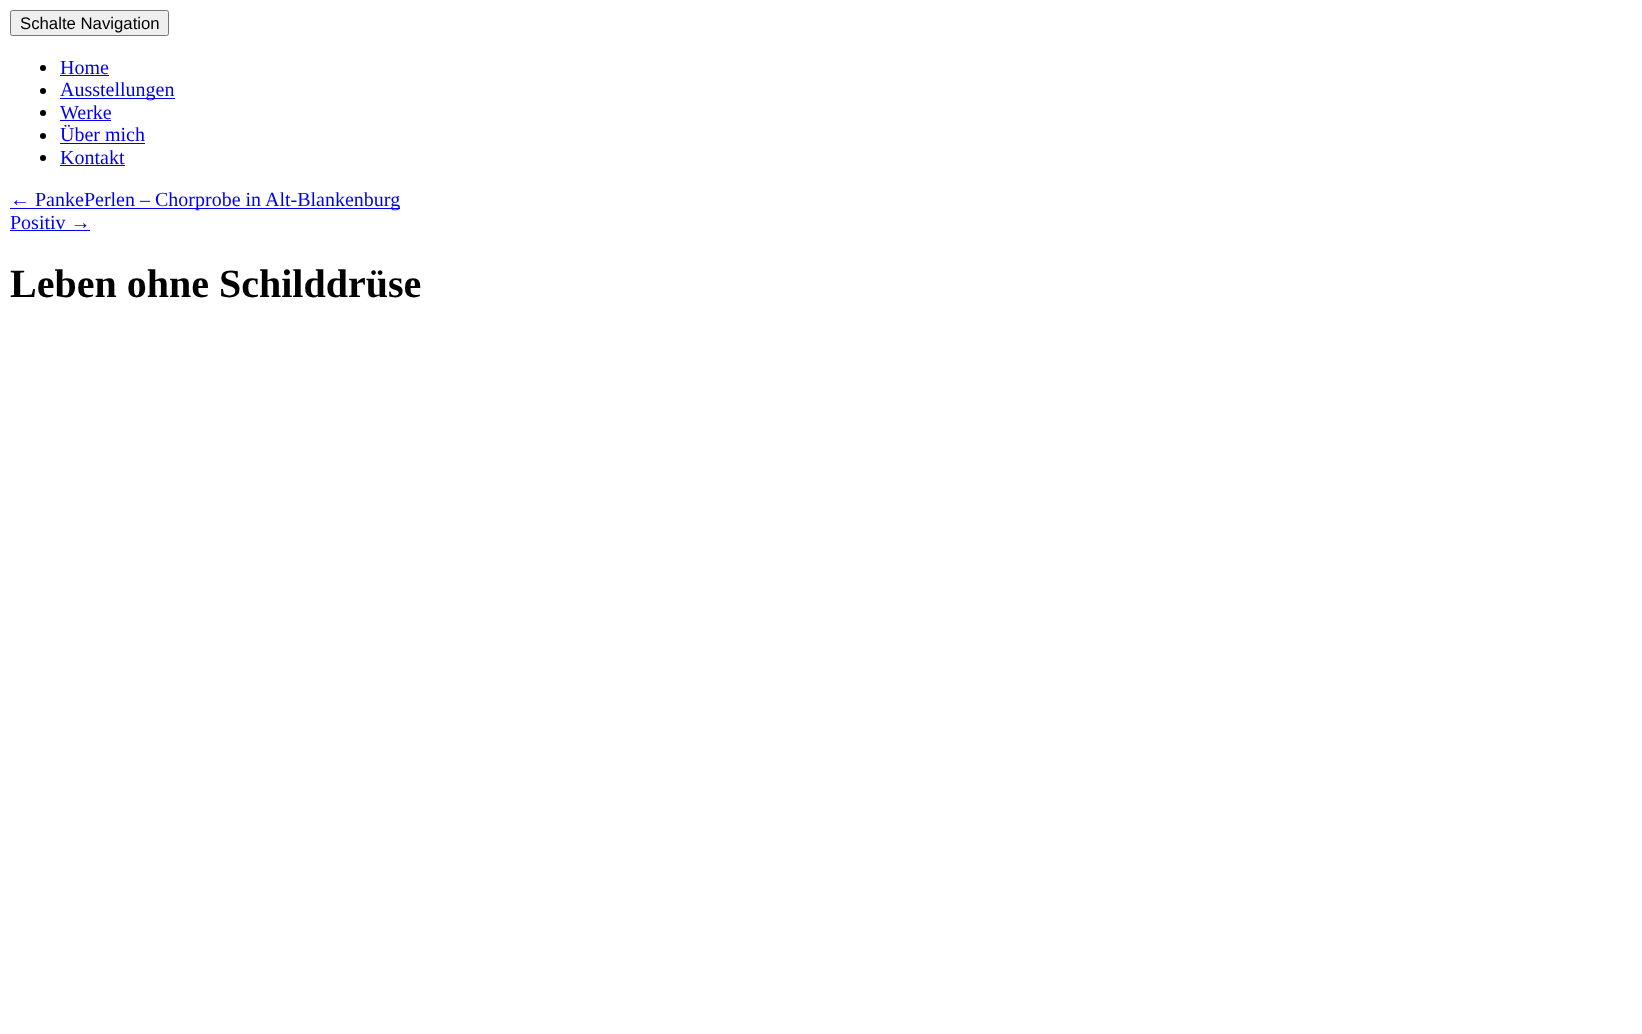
async function draw(canvas) {
  canvas.width = 1642;
  canvas.height = 1034;
  const ctx = canvas.getContext('2d');
  ctx.miterLimit = 4;
  ctx.fontKerning = 'normal';
  function label(s, x, y, font, color) {
    ctx.font = font;
    ctx.fillStyle = color;
    ctx.fillText(s, x, y);
  }
  function rect(x, y, w, h, color) {
    ctx.fillStyle = color;
    ctx.fillRect(x, y, w, h);
  }

  rect(0, 0, 1642, 1034, '#fff');
  ctx.fillStyle = '#efefef';
  ctx.beginPath();
  ctx.roundRect(10.5, 10.5, 158, 25, 2);
  ctx.fill();
  ctx.strokeStyle = '#767676';
  ctx.stroke();
  label('Schalte Navigation', 20, 29, '16.75px Liberation Sans', '#000');
  ctx.beginPath();
  ctx.arc(43, 68, 3, 0, 2 * Math.PI);
  ctx.fill();
  label('Home', 60, 74, '20px Liberation Serif', '#00e');
  rect(60, 75, 49, 1, '#00e');
  ctx.fillStyle = '#000';
  ctx.beginPath();
  ctx.arc(43, 91, 3, 0, 2 * Math.PI);
  ctx.fill();
  rect(60, 98, 115, 1, '#00e');
  label('Ausstellungen', 60, 96, '20px Liberation Serif', '#00e');
  ctx.fillStyle = '#000';
  ctx.beginPath();
  ctx.arc(43, 113, 3, 0, 2 * Math.PI);
  ctx.fill();
  label('Werke', 60, 119, '20px Liberation Serif', '#00e');
  rect(60, 120, 51, 1, '#00e');
  ctx.fillStyle = '#000';
  ctx.beginPath();
  ctx.arc(43, 136, 3, 0, 2 * Math.PI);
  ctx.fill();
  label('Über mich', 60, 141, '20px Liberation Serif', '#00e');
  rect(60, 143, 85, 1, '#00e');
  ctx.fillStyle = '#000';
  ctx.beginPath();
  ctx.arc(43, 158, 3, 0, 2 * Math.PI);
  ctx.fill();
  label('Kontakt', 60, 164, '20px Liberation Serif', '#00e');
  rect(60, 165, 65, 1, '#00e');
  rect(10, 208, 390, 1, '#00e');
  label('← PankePerlen – Chorprobe in Alt-Blankenburg', 10, 206, '20px Liberation Serif', '#00e');
  label('Positiv →', 10, 229, '20px Liberation Serif', '#00e');
  rect(10, 230, 80, 1, '#00e');
  label('Leben ohne Schilddrüse', 10, 297, 'bold 40px Liberation Serif', '#000');
}

draw(document.querySelector('canvas'));
